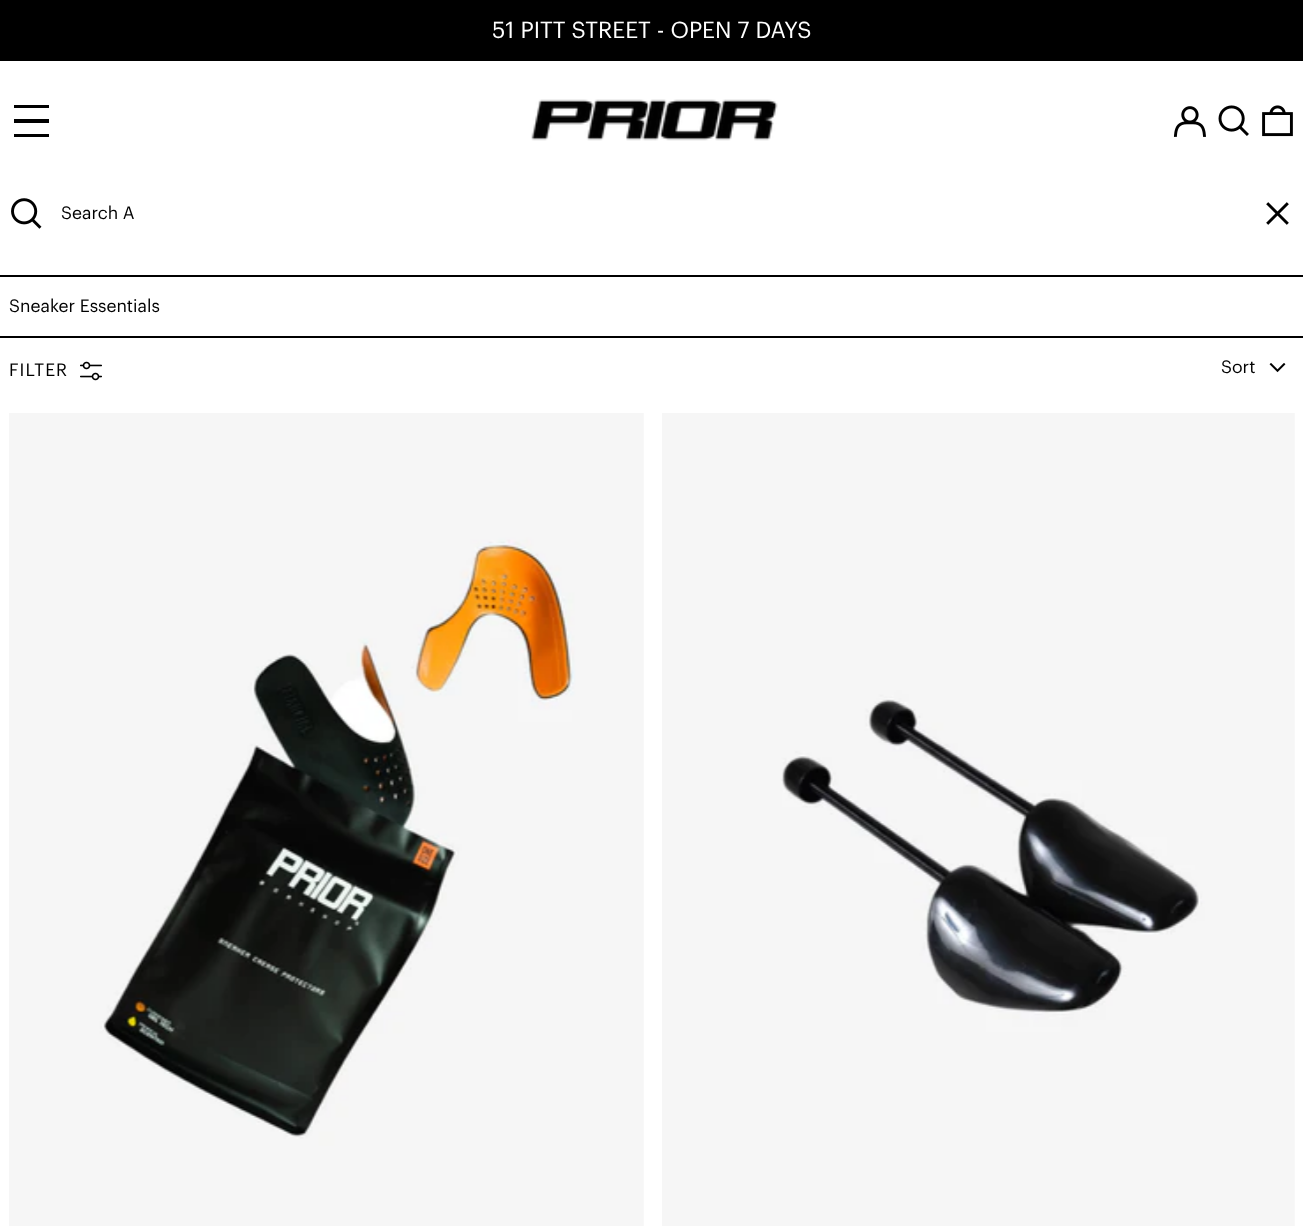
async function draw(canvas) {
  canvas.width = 1303;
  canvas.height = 1226;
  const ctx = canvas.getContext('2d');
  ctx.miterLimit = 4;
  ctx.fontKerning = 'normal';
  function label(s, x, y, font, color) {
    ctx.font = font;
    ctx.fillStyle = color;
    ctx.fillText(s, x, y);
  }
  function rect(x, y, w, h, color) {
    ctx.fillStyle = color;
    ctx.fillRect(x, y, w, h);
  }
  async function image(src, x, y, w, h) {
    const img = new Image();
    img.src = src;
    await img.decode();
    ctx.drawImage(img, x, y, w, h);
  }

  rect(0, 0, 1303, 1226, '#fff');
  rect(0, 0, 1303, 61, '#000');
  label('51 PITT STREET - OPEN 7 DAYS', 492, 38, '22.75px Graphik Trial', '#fff');
  rect(14, 105, 35, 3, '#000');
  rect(14, 119, 35, 4, '#000');
  rect(14, 134, 35, 3, '#000');
  await image('assets/img1.png', 531, 99, 247, 42);
  await image('assets/img2.png', 1173, 106, 33, 31);
  await image('assets/img3.png', 1218, 105, 31, 31);
  await image('assets/img4.png', 1262, 105, 31, 32);
  await image('assets/img5.png', 11, 198, 31, 31);
  label('Search A', 61, 219, '17.5px Graphik Trial', '#000');
  await image('assets/img6.png', 1266, 202, 23, 23);
  rect(0, 275, 1303, 2, '#000');
  rect(0, 336, 1303, 2, '#000');
  label('Sneaker Essentials', 9, 312, '17.5px Graphik Trial', '#000');
  ctx.letterSpacing = '1px';
  label('FILTER', 9, 376, '17.5px Graphik Trial', '#000');
  await image('assets/img7.png', 80, 361, 22, 20);
  ctx.letterSpacing = '0px';
  label('Sort', 1221, 373, '17.5px Graphik Trial', '#000');
  await image('assets/img8.png', 1269, 363, 17, 10);
  await image('assets/img9.png', 9, 413, 635, 813);
  await image('assets/img10.png', 662, 413, 633, 813);
}

draw(document.querySelector('canvas'));
